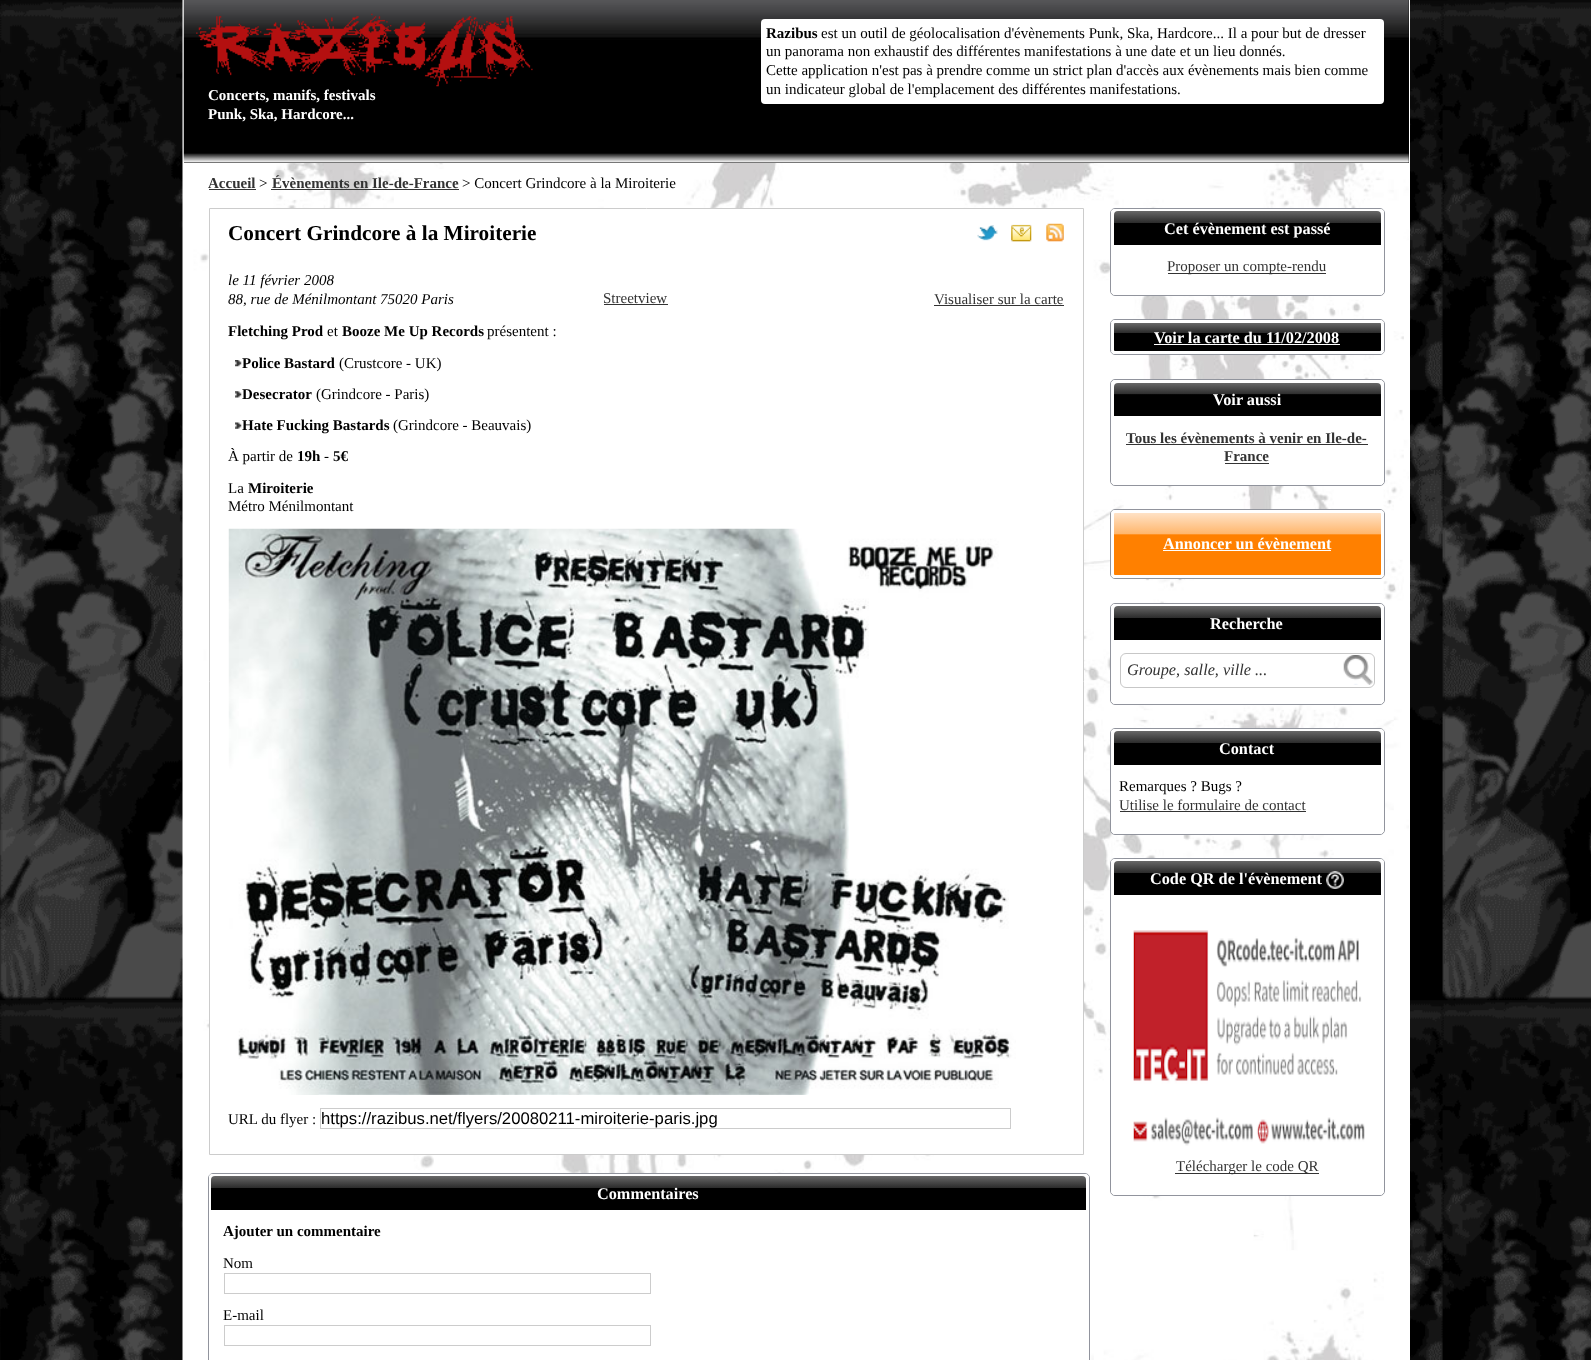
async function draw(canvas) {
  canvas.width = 1591;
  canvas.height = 1360;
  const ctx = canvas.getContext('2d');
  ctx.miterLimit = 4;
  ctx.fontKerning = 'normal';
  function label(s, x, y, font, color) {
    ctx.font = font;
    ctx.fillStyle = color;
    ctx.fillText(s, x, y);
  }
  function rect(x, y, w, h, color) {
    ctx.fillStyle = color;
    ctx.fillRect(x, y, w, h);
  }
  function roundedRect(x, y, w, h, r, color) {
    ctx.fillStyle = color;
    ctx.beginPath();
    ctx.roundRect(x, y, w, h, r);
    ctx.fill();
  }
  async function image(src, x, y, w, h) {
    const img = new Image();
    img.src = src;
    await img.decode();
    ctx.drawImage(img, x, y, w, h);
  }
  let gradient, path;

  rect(0, 0, 1591, 1360, '#fff');
  await image('assets/img1.png', 0, 0, 1591, 1360);
  await image('assets/img2.png', 182, 0, 1227, 1360);
  rect(1409, 0, 1, 1360, '#fff');
  rect(183, 364, 1, 836, '#fff');
  rect(184, 0, 1225, 163, '#000');
  await image('assets/img3.png', 183, 0, 1226, 163);
  roundedRect(761, 19, 623, 85, 4, '#fff');
  label('Razibus', 766, 38, 'bold 15px Liberation Serif', '#000');
  label('est un outil de géolocalisation d\'évènements Punk, Ska, Hardcore... Il a pour but de dresser', 821, 38, '15px Liberation Serif', '#000');
  label('un panorama non exhaustif des différentes manifestations à une date et un lieu donnés.', 766, 56, '15px Liberation Serif', '#000');
  label('Cette application n\'est pas à prendre comme un strict plan d\'accès aux évènements mais bien comme', 766, 75, '15px Liberation Serif', '#000');
  label('un indicateur global de l\'emplacement des différentes manifestations.', 766, 94, '15px Liberation Serif', '#000');
  await image('assets/img4.png', 196, 13, 337, 74);
  label('Concerts, manifs, festivals', 208, 100, 'bold 15px Liberation Serif', '#fff');
  label('Punk, Ska, Hardcore...', 208, 119, 'bold 15px Liberation Serif', '#fff');
  label('Accueil', 208, 188, 'bold 15px Liberation Serif', '#333');
  rect(209, 189, 47, 1, '#333');
  label('>', 259, 188, '15px Liberation Serif', '#000');
  label('Évènements en Ile-de-France', 272, 188, 'bold 15px Liberation Serif', '#333');
  rect(271, 189, 188, 1, '#333');
  label('> Concert Grindcore à la Miroiterie', 462, 188, '15px Liberation Serif', '#000');
  ctx.fillStyle = '#fff';
  ctx.beginPath();
  ctx.rect(209.5, 208.5, 874, 946);
  ctx.fill();
  ctx.strokeStyle = '#ccc';
  ctx.stroke();
  label('Concert Grindcore à la Miroiterie', 228, 240, 'bold 21.25px Liberation Serif', '#000');
  await image('assets/img5.png', 977, 225, 21, 16);
  await image('assets/img6.png', 1011, 224, 21, 18);
  await image('assets/img7.png', 1046, 223, 18, 19);
  label('le 11 février 2008', 228, 285, 'italic 15px Liberation Serif', '#000');
  label('88, rue de Ménilmontant 75020 Paris', 228, 304, 'italic 15px Liberation Serif', '#000');
  label('Streetview', 603, 303, '15px Liberation Serif', '#333');
  rect(604, 304, 64, 1, '#333');
  label('Visualiser sur la carte', 934, 304, '15px Liberation Serif', '#333');
  rect(934, 305, 130, 1, '#333');
  label('Fletching Prod', 228, 336, 'bold 15px Liberation Serif', '#000');
  label('et', 327, 336, '15px Liberation Serif', '#000');
  label('Booze Me Up Records', 342, 336, 'bold 15px Liberation Serif', '#000');
  label('présentent :', 487, 336, '15px Liberation Serif', '#000');
  await image('assets/img8.png', 235, 360, 7, 7);
  label('Police Bastard', 242, 368, 'bold 15px Liberation Serif', '#000');
  label('(Crustcore - UK)', 339, 368, '15px Liberation Serif', '#000');
  await image('assets/img9.png', 235, 391, 7, 7);
  label('Desecrator', 242, 399, 'bold 15px Liberation Serif', '#000');
  label('(Grindcore - Paris)', 316, 399, '15px Liberation Serif', '#000');
  await image('assets/img10.png', 235, 422, 7, 7);
  label('Hate Fucking Bastards', 242, 430, 'bold 15px Liberation Serif', '#000');
  label('(Grindcore - Beauvais)', 393, 430, '15px Liberation Serif', '#000');
  label('À partir de', 228, 461, '15px Liberation Serif', '#000');
  label('19h', 297, 461, 'bold 15px Liberation Serif', '#000');
  label('-', 324, 461, '15px Liberation Serif', '#000');
  label('5€', 333, 461, 'bold 15px Liberation Serif', '#000');
  label('La', 228, 493, '15px Liberation Serif', '#000');
  label('Miroiterie', 248, 493, 'bold 15px Liberation Serif', '#000');
  label('Métro Ménilmontant', 228, 511, '15px Liberation Serif', '#000');
  await image('assets/img11.png', 228, 528, 788, 567);
  label('URL du flyer :', 228, 1124, '15px Liberation Serif', '#000');
  ctx.strokeRect(320.5, 1108.5, 690, 20);
  label('https://razibus.net/flyers/20080211-miroiterie-paris.jpg', 321, 1124, '16.7px Liberation Sans', '#000');
  ctx.beginPath();
  ctx.roundRect(208.5, 1173.5, 881, 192, 4.5);
  ctx.strokeStyle = '#91949d';
  ctx.stroke();
  ctx.fillStyle = '#fff';
  path = new Path2D('M212 1176H1085C1086 1176 1086 1177 1086 1178V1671C1086 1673 1086 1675 1085 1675H212C212 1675 211 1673 211 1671V1178C211 1177 212 1176 212 1176Z');
  ctx.fill(path);
  path = new Path2D('M212 1174H1085C1087 1174 1089 1175 1089 1178V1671C1089 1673 1087 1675 1085 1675H212C210 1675 209 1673 209 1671V1178C209 1175 210 1174 212 1174ZM212 1176H1085C1086 1176 1086 1177 1086 1178V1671C1086 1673 1086 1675 1085 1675H212C212 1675 211 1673 211 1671V1178C211 1177 212 1176 212 1176Z');
  ctx.fill(path, 'evenodd');
  gradient = ctx.createLinearGradient(649, 1176, 649, 1210);
  gradient.addColorStop(0, '#686868');
  gradient.addColorStop(0.34, '#2d2d2d');
  gradient.addColorStop(0.35, '#000');
  gradient.addColorStop(1, '#000');
  ctx.fillStyle = gradient;
  ctx.beginPath();
  ctx.roundRect(211, 1176, 875, 34, [4, 4, 0, 0]);
  ctx.fill();
  label('Commentaires', 597, 1199, 'bold 16.25px Liberation Serif', '#fff');
  label('Ajouter un commentaire', 223, 1236, 'bold 15px Liberation Serif', '#000');
  label('Nom', 223, 1268, '15px Liberation Serif', '#000');
  ctx.strokeStyle = '#ccc';
  ctx.strokeRect(224.5, 1273.5, 426, 20);
  label('E-mail', 223, 1320, '15px Liberation Serif', '#000');
  ctx.strokeRect(224.5, 1325.5, 426, 20);
  ctx.beginPath();
  ctx.roundRect(1110.5, 208.5, 274, 87, 4.5);
  ctx.strokeStyle = '#91949d';
  ctx.stroke();
  ctx.fillStyle = '#fff';
  path = new Path2D('M1115 211H1380C1381 211 1381 212 1381 212V291C1381 293 1381 295 1380 295H1115C1114 295 1114 293 1114 291V212C1114 212 1114 211 1115 211Z');
  ctx.fill(path);
  path = new Path2D('M1115 209H1380C1382 209 1384 210 1384 212V291C1384 293 1382 295 1380 295H1115C1113 295 1111 293 1111 291V212C1111 210 1113 209 1115 209ZM1115 211H1380C1381 211 1381 212 1381 212V291C1381 293 1381 295 1380 295H1115C1114 295 1114 293 1114 291V212C1114 212 1114 211 1115 211Z');
  ctx.fill(path, 'evenodd');
  gradient = ctx.createLinearGradient(1248, 211, 1248, 245);
  gradient.addColorStop(0, '#686868');
  gradient.addColorStop(0.34, '#2d2d2d');
  gradient.addColorStop(0.35, '#000');
  gradient.addColorStop(1, '#000');
  ctx.fillStyle = gradient;
  ctx.beginPath();
  ctx.roundRect(1114, 211, 267, 34, [4, 4, 0, 0]);
  ctx.fill();
  label('Cet évènement est passé', 1164, 234, 'bold 16.25px Liberation Serif', '#fff');
  rect(1168, 273, 158, 1, '#333');
  label('Proposer un compte-rendu', 1167, 271, '15px Liberation Serif', '#333');
  ctx.beginPath();
  ctx.roundRect(1110.5, 319.5, 274, 35, 4.5);
  ctx.stroke();
  gradient = ctx.createLinearGradient(1248, 323, 1248, 351);
  gradient.addColorStop(0, '#686868');
  gradient.addColorStop(0.34, '#2d2d2d');
  gradient.addColorStop(0.35, '#000');
  gradient.addColorStop(1, '#000');
  ctx.fillStyle = gradient;
  ctx.fillRect(1111, 323, 273, 28);
  ctx.beginPath();
  ctx.roundRect(1112.5, 321.5, 270, 31, 2.5);
  ctx.strokeStyle = '#fff';
  ctx.lineWidth = 3;
  ctx.stroke();
  label('Voir la carte du 11/02/2008', 1154, 343, 'bold 16.25px Liberation Serif', '#fff');
  rect(1154, 344, 186, 1, '#fff');
  ctx.beginPath();
  ctx.roundRect(1110.5, 379.5, 274, 106, 4.5);
  ctx.strokeStyle = '#91949d';
  ctx.lineWidth = 1;
  ctx.stroke();
  path = new Path2D('M1115 382H1380C1381 382 1381 383 1381 384V481C1381 483 1381 485 1380 485H1115C1114 485 1114 483 1114 481V384C1114 383 1114 382 1115 382Z');
  ctx.fill(path);
  path = new Path2D('M1115 380H1380C1382 380 1384 382 1384 384V481C1384 483 1382 485 1380 485H1115C1113 485 1111 483 1111 481V384C1111 382 1113 380 1115 380ZM1115 382H1380C1381 382 1381 383 1381 384V481C1381 483 1381 485 1380 485H1115C1114 485 1114 483 1114 481V384C1114 383 1114 382 1115 382Z');
  ctx.fill(path, 'evenodd');
  gradient = ctx.createLinearGradient(1248, 383, 1248, 416);
  gradient.addColorStop(0, '#686868');
  gradient.addColorStop(0.34, '#2d2d2d');
  gradient.addColorStop(0.35, '#000');
  gradient.addColorStop(1, '#000');
  ctx.fillStyle = gradient;
  ctx.beginPath();
  ctx.roundRect(1114, 383, 267, 33, [4, 4, 0, 0]);
  ctx.fill();
  label('Voir aussi', 1213, 405, 'bold 16.25px Liberation Serif', '#fff');
  label('Tous les évènements à venir en Ile-de-', 1126, 443, 'bold 15px Liberation Serif', '#333');
  rect(1126, 444, 242, 1, '#333');
  label('France', 1224, 461, 'bold 15px Liberation Serif', '#333');
  rect(1225, 463, 44, 1, '#333');
  ctx.beginPath();
  ctx.roundRect(1110.5, 509.5, 274, 69, 4.5);
  ctx.stroke();
  gradient = ctx.createLinearGradient(1248, 513, 1248, 575);
  gradient.addColorStop(0, '#ffe2c6');
  gradient.addColorStop(0.34, '#ffb66c');
  gradient.addColorStop(0.35, '#ff8000');
  gradient.addColorStop(1, '#ff8000');
  ctx.fillStyle = gradient;
  ctx.fillRect(1111, 513, 273, 62);
  ctx.beginPath();
  ctx.roundRect(1112.5, 511.5, 270, 65, 2.5);
  ctx.strokeStyle = '#fff';
  ctx.lineWidth = 3;
  ctx.stroke();
  label('Annoncer un évènement', 1163, 549, 'bold 16.25px Liberation Serif', '#fff');
  rect(1163, 550, 168, 1, '#fff');
  ctx.beginPath();
  ctx.roundRect(1110.5, 603.5, 274, 101, 4.5);
  ctx.strokeStyle = '#91949d';
  ctx.lineWidth = 1;
  ctx.stroke();
  path = new Path2D('M1115 606H1380C1381 606 1381 607 1381 608V700C1381 702 1381 704 1380 704H1115C1114 704 1114 702 1114 700V608C1114 607 1114 606 1115 606Z');
  ctx.fill(path);
  path = new Path2D('M1115 604H1380C1382 604 1384 605 1384 608V700C1384 702 1382 704 1380 704H1115C1113 704 1111 702 1111 700V608C1111 605 1113 604 1115 604ZM1115 606H1380C1381 606 1381 607 1381 608V700C1381 702 1381 704 1380 704H1115C1114 704 1114 702 1114 700V608C1114 607 1114 606 1115 606Z');
  ctx.fill(path, 'evenodd');
  gradient = ctx.createLinearGradient(1248, 606, 1248, 640);
  gradient.addColorStop(0, '#686868');
  gradient.addColorStop(0.34, '#2d2d2d');
  gradient.addColorStop(0.35, '#000');
  gradient.addColorStop(1, '#000');
  ctx.fillStyle = gradient;
  ctx.beginPath();
  ctx.roundRect(1114, 606, 267, 34, [4, 4, 0, 0]);
  ctx.fill();
  label('Recherche', 1210, 629, 'bold 16.25px Liberation Serif', '#fff');
  ctx.beginPath();
  ctx.roundRect(1120.5, 653.5, 254, 34, 5.5);
  ctx.strokeStyle = '#c7c7c7';
  ctx.stroke();
  ctx.save();
  ctx.beginPath();
  ctx.rect(1128, 660, 246, 20);
  ctx.clip();
  label('Groupe, salle, ville ...', 1127, 675, 'italic 16.25px Liberation Serif', '#333');
  ctx.restore();
  await image('assets/img12.png', 1343, 655, 30, 30);
  ctx.beginPath();
  ctx.roundRect(1110.5, 728.5, 274, 106, 4.5);
  ctx.strokeStyle = '#91949d';
  ctx.stroke();
  path = new Path2D('M1115 731H1380C1381 731 1381 732 1381 732V830C1381 832 1381 834 1380 834H1115C1114 834 1114 832 1114 830V732C1114 732 1114 731 1115 731Z');
  ctx.fill(path);
  path = new Path2D('M1115 729H1380C1382 729 1384 730 1384 732V830C1384 832 1382 834 1380 834H1115C1113 834 1111 832 1111 830V732C1111 730 1113 729 1115 729ZM1115 731H1380C1381 731 1381 732 1381 732V830C1381 832 1381 834 1380 834H1115C1114 834 1114 832 1114 830V732C1114 732 1114 731 1115 731Z');
  ctx.fill(path, 'evenodd');
  gradient = ctx.createLinearGradient(1248, 731, 1248, 765);
  gradient.addColorStop(0, '#686868');
  gradient.addColorStop(0.34, '#2d2d2d');
  gradient.addColorStop(0.35, '#000');
  gradient.addColorStop(1, '#000');
  ctx.fillStyle = gradient;
  ctx.beginPath();
  ctx.roundRect(1114, 731, 267, 34, [4, 4, 0, 0]);
  ctx.fill();
  label('Contact', 1219, 754, 'bold 16.25px Liberation Serif', '#fff');
  label('Remarques ? Bugs ?', 1119, 791, '15px Liberation Serif', '#000');
  label('Utilise le formulaire de contact', 1119, 810, '15px Liberation Serif', '#333');
  rect(1120, 811, 186, 1, '#333');
  ctx.beginPath();
  ctx.roundRect(1110.5, 858.5, 274, 337, 4.5);
  ctx.stroke();
  ctx.fillStyle = '#fff';
  path = new Path2D('M1115 861H1380C1381 861 1381 862 1381 862V1191C1381 1193 1381 1195 1380 1195H1115C1114 1195 1114 1193 1114 1191V862C1114 862 1114 861 1115 861Z');
  ctx.fill(path);
  path = new Path2D('M1115 859H1380C1382 859 1384 860 1384 862V1191C1384 1193 1382 1195 1380 1195H1115C1113 1195 1111 1193 1111 1191V862C1111 860 1113 859 1115 859ZM1115 861H1380C1381 861 1381 862 1381 862V1191C1381 1193 1381 1195 1380 1195H1115C1114 1195 1114 1193 1114 1191V862C1114 862 1114 861 1115 861Z');
  ctx.fill(path, 'evenodd');
  gradient = ctx.createLinearGradient(1248, 861, 1248, 895);
  gradient.addColorStop(0, '#686868');
  gradient.addColorStop(0.34, '#2d2d2d');
  gradient.addColorStop(0.35, '#000');
  gradient.addColorStop(1, '#000');
  ctx.fillStyle = gradient;
  ctx.beginPath();
  ctx.roundRect(1114, 861, 267, 34, [4, 4, 0, 0]);
  ctx.fill();
  label('Code QR de l\'évènement', 1150, 884, 'bold 16.25px Liberation Serif', '#fff');
  await image('assets/img13.png', 1326, 871, 18, 18);
  await image('assets/img14.png', 1133, 930, 232, 216);
  rect(1175, 1173, 144, 1, '#333');
  label('Télécharger le code QR', 1176, 1171, '15px Liberation Serif', '#333');
}

draw(document.querySelector('canvas'));
